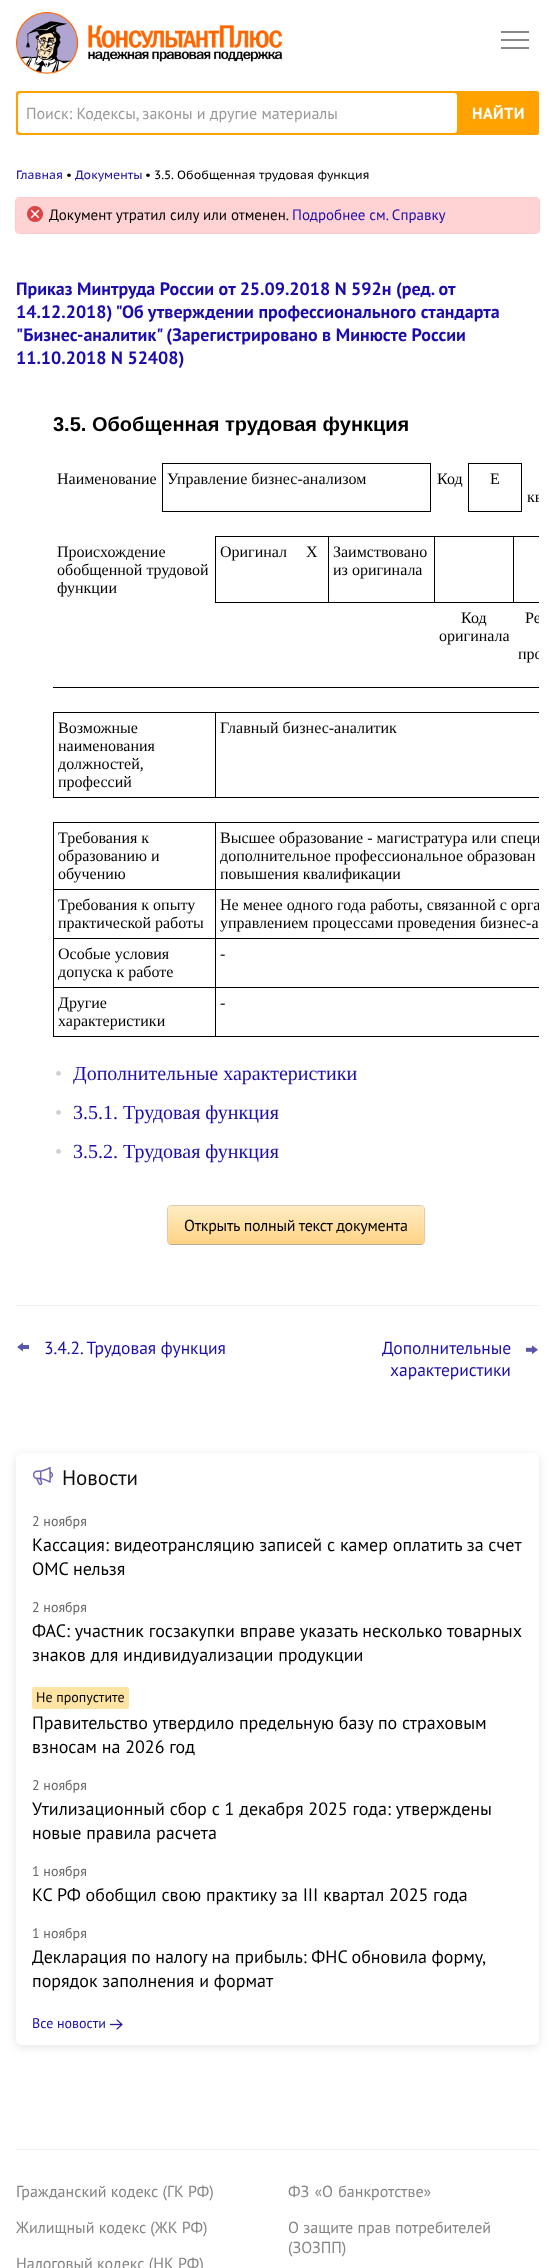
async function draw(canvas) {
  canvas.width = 555;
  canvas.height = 2268;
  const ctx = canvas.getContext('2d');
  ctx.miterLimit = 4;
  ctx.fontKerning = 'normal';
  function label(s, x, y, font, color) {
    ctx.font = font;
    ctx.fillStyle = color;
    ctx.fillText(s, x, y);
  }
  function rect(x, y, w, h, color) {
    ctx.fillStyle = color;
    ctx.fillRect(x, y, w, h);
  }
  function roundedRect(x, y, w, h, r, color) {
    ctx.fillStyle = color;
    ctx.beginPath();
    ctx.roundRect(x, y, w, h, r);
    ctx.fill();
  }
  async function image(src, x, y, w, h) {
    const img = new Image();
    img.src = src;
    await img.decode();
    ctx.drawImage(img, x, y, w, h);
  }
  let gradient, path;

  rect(0, 0, 555, 2268, '#fff');
  await image('assets/img1.png', 16, 12, 266, 62);
  await image('assets/img2.png', 501, 31, 28, 18);
  roundedRect(16, 91, 523, 44, 3, '#ffa200');
  roundedRect(18, 93, 439, 40, 3, '#fff');
  label('Поиск: Кодексы, законы и другие материалы', 26, 119, '16px PT Sans', '#999');
  roundedRect(457, 91, 82, 44, 3, '#ffa200');
  ctx.letterSpacing = '0.5px';
  label('НАЙТИ', 472, 119, 'bold 16px PT Sans', '#fff');
  ctx.letterSpacing = '0px';
  label('Главная', 16, 179, '12px PT Sans Caption', '#1a0dab');
  label('•', 66, 179, '12px PT Sans Caption', '#000');
  label('Документы', 75, 179, '12px PT Sans Caption', '#1a0dab');
  label('•', 145, 179, '12px PT Sans Caption', '#000');
  label('3.5. Обобщенная трудовая функция', 154, 179, '12px PT Sans Caption', '#000');
  ctx.beginPath();
  ctx.roundRect(15.5, 197.5, 524, 36, 3.5);
  ctx.strokeStyle = '#ffcaca';
  ctx.stroke();
  roundedRect(16, 198, 523, 35, 3, '#ffd3d3');
  await image('assets/img3.png', 27, 206, 16, 16);
  label('Документ утратил силу или отменен.', 49, 220, '15px PT Sans', '#000');
  label('Подробнее см. Справку', 292, 220, '15px PT Sans', '#1a0dab');
  label('Приказ Минтруда России от 25.09.2018 N 592н (ред. от', 16, 295, 'bold 18px PT Sans', '#1a0dab');
  label('14.12.2018) "Об утверждении профессионального стандарта', 16, 318, 'bold 18px PT Sans', '#1a0dab');
  label('"Бизнес-аналитик" (Зарегистрировано в Минюсте России', 16, 341, 'bold 18px PT Sans', '#1a0dab');
  label('11.10.2018 N 52408)', 16, 364, 'bold 18px PT Sans', '#1a0dab');
  label('3.5. Обобщенная трудовая функция', 53, 431, 'bold 20px Liberation Sans', '#000');
  rect(162, 463, 269, 1, '#000');
  rect(430, 463, 1, 49, '#000');
  rect(162, 511, 269, 1, '#000');
  rect(162, 463, 1, 49, '#000');
  label('Наименование', 57, 484, '16px Liberation Serif', '#000');
  label('Управление бизнес-анализом', 167, 484, '16px Liberation Serif', '#000');
  rect(468, 463, 54, 1, '#000');
  rect(521, 463, 1, 49, '#000');
  rect(468, 511, 54, 1, '#000');
  rect(468, 463, 1, 49, '#000');
  label('Код', 437, 484, '16px Liberation Serif', '#000');
  label('E', 490, 484, '16px Liberation Serif', '#000');
  ctx.save();
  ctx.beginPath();
  ctx.rect(53, 463, 486, 49);
  ctx.clip();
  label('кв', 527, 502, '16px Liberation Serif', '#000');
  ctx.restore();
  rect(215, 536, 324, 1, '#000');
  rect(215, 602, 324, 1, '#000');
  rect(215, 536, 1, 67, '#000');
  label('Происхождение', 57, 557, '16px Liberation Serif', '#000');
  label('обобщенной трудовой', 57, 575, '16px Liberation Serif', '#000');
  label('функции', 57, 593, '16px Liberation Serif', '#000');
  label('Оригинал', 220, 557, '16px Liberation Serif', '#000');
  rect(328, 536, 1, 67, '#000');
  label('X', 306, 557, '16px Liberation Serif', '#000');
  rect(434, 536, 1, 67, '#000');
  label('Заимствовано', 333, 557, '16px Liberation Serif', '#000');
  label('из оригинала', 333, 575, '16px Liberation Serif', '#000');
  rect(513, 536, 1, 67, '#000');
  label('Код', 461, 623, '16px Liberation Serif', '#000');
  label('оригинала', 439, 641, '16px Liberation Serif', '#000');
  rect(53, 687, 486, 1, '#000');
  ctx.save();
  ctx.beginPath();
  ctx.rect(53, 536, 486, 152);
  ctx.clip();
  label('Ре', 525, 623, '16px Liberation Serif', '#000');
  label('про', 518, 659, '16px Liberation Serif', '#000');
  ctx.restore();
  rect(53, 712, 486, 1, '#000');
  rect(215, 797, 324, 1, '#000');
  rect(215, 712, 1, 86, '#000');
  rect(53, 797, 163, 1, '#000');
  rect(53, 712, 1, 86, '#000');
  label('Возможные', 58, 733, '16px Liberation Serif', '#000');
  label('наименования', 58, 751, '16px Liberation Serif', '#000');
  label('должностей,', 58, 769, '16px Liberation Serif', '#000');
  label('профессий', 58, 787, '16px Liberation Serif', '#000');
  label('Главный бизнес-аналитик', 220, 733, '16px Liberation Serif', '#000');
  rect(53, 822, 486, 1, '#000');
  rect(53, 889, 486, 1, '#000');
  rect(53, 938, 486, 1, '#000');
  rect(53, 987, 486, 1, '#000');
  rect(215, 1036, 324, 1, '#000');
  rect(215, 987, 1, 50, '#000');
  rect(215, 938, 1, 50, '#000');
  rect(215, 889, 1, 50, '#000');
  rect(215, 822, 1, 68, '#000');
  rect(53, 1036, 163, 1, '#000');
  rect(53, 987, 1, 50, '#000');
  rect(53, 938, 1, 50, '#000');
  rect(53, 889, 1, 50, '#000');
  rect(53, 822, 1, 68, '#000');
  label('Требования к', 58, 843, '16px Liberation Serif', '#000');
  label('образованию и', 58, 861, '16px Liberation Serif', '#000');
  label('обучению', 58, 879, '16px Liberation Serif', '#000');
  ctx.save();
  ctx.beginPath();
  ctx.rect(53, 822, 486, 215);
  ctx.clip();
  label('Высшее образование - магистратура или специ', 220, 843, '16px Liberation Serif', '#000');
  ctx.restore();
  label('дополнительное профессиональное образован', 220, 861, '16px Liberation Serif', '#000');
  label('повышения квалификации', 220, 879, '16px Liberation Serif', '#000');
  label('Требования к опыту', 58, 910, '16px Liberation Serif', '#000');
  label('практической работы', 58, 928, '16px Liberation Serif', '#000');
  ctx.save();
  ctx.beginPath();
  ctx.rect(53, 822, 486, 215);
  ctx.clip();
  label('Не менее одного года работы, связанной с орга', 220, 910, '16px Liberation Serif', '#000');
  ctx.restore();
  label('управлением процессами проведения бизнес-а', 220, 928, '16px Liberation Serif', '#000');
  label('Особые условия', 58, 959, '16px Liberation Serif', '#000');
  label('допуска к работе', 58, 977, '16px Liberation Serif', '#000');
  label('-', 220, 959, '16px Liberation Serif', '#000');
  label('Другие', 58, 1008, '16px Liberation Serif', '#000');
  label('характеристики', 58, 1026, '16px Liberation Serif', '#000');
  label('-', 220, 1008, '16px Liberation Serif', '#000');
  label('•', 55, 1080, '20px Liberation Serif', '#d1cdd7');
  label('Дополнительные характеристики', 73, 1080, '20px Liberation Serif', '#1a0dab');
  label('•', 55, 1119, '20px Liberation Serif', '#d1cdd7');
  label('3.5.1. Трудовая функция', 73, 1119, '20px Liberation Serif', '#1a0dab');
  label('•', 55, 1158, '20px Liberation Serif', '#d1cdd7');
  label('3.5.2. Трудовая функция', 73, 1158, '20px Liberation Serif', '#1a0dab');
  ctx.beginPath();
  ctx.roundRect(167.5, 1205.5, 257, 39, 3.5);
  ctx.strokeStyle = '#dacab3';
  ctx.stroke();
  ctx.fillStyle = '#49310c33';
  path = new Path2D('M168 1241C168 1243 169 1245 171 1245H421C423 1245 424 1243 424 1241C424 1243 423 1244 421 1244H171C169 1244 168 1243 168 1241Z');
  ctx.fill(path);
  gradient = ctx.createLinearGradient(296, 1206, 296, 1244);
  gradient.addColorStop(0, '#ffedc4');
  gradient.addColorStop(0.97, '#ffd386');
  ctx.fillStyle = gradient;
  ctx.beginPath();
  ctx.roundRect(168, 1206, 256, 38, 3);
  ctx.fill();
  ctx.letterSpacing = '-0.25px';
  label('Открыть полный текст документа', 184, 1231, '16px PT Sans', '#000');
  rect(16, 1305, 523, 1, '#f2f2f2');
  await image('assets/img4.png', 17, 1342, 12, 10);
  ctx.letterSpacing = '0px';
  label('3.4.2. Трудовая функция', 44, 1354, '17.5px PT Sans', '#1a0dab');
  label('Дополнительные', 382, 1354, '17.5px PT Sans', '#1a0dab');
  await image('assets/img5.png', 526, 1345, 12, 10);
  label('характеристики', 390, 1376, '17.5px PT Sans', '#1a0dab');
  ctx.fillStyle = '#28272a1f';
  ctx.filter = 'blur(5px)';
  ctx.beginPath();
  ctx.roundRect(16, 1455, 523, 592, 6);
  ctx.fill();
  ctx.filter = 'none';
  roundedRect(16, 1453, 523, 592, 6, '#fff');
  await image('assets/img6.png', 32, 1467, 22, 19);
  label('Новости', 62, 1485, '21px PT Sans', '#0e0e0e');
  label('2 ноября', 32, 1526, '14px PT Sans', '#666');
  label('Кассация: видеотрансляцию записей с камер оплатить за счет', 32, 1551, '18px PT Sans', '#000');
  label('ОМС нельзя', 32, 1575, '18px PT Sans', '#000');
  label('2 ноября', 32, 1612, '14px PT Sans', '#666');
  label('ФАС: участник госзакупки вправе указать несколько товарных', 32, 1637, '18px PT Sans', '#000');
  label('знаков для индивидуализации продукции', 32, 1661, '18px PT Sans', '#000');
  roundedRect(32, 1687, 97, 22, 2, '#ffe4a3');
  label('Не пропустите', 36, 1702, '14px PT Sans', '#000');
  label('Правительство утвердило предельную базу по страховым', 32, 1729, '18px PT Sans', '#000');
  label('взносам на 2026 год', 32, 1753, '18px PT Sans', '#000');
  label('2 ноября', 32, 1790, '14px PT Sans', '#666');
  label('Утилизационный сбор с 1 декабря 2025 года: утверждены', 32, 1815, '18px PT Sans', '#000');
  label('новые правила расчета', 32, 1839, '18px PT Sans', '#000');
  label('1 ноября', 32, 1876, '14px PT Sans', '#666');
  label('КС РФ обобщил свою практику за III квартал 2025 года', 32, 1901, '18px PT Sans', '#000');
  label('1 ноября', 32, 1938, '14px PT Sans', '#666');
  ctx.wordSpacing = '-0.25px';
  label('Декларация по налогу на прибыль: ФНС обновила форму,', 32, 1963, '18px PT Sans', '#000');
  ctx.wordSpacing = '0px';
  label('порядок заполнения и формат', 32, 1987, '18px PT Sans', '#000');
  label('Все новости', 32, 2028, '14px PT Sans', '#1a0dab');
  await image('assets/img7.png', 109, 2019, 14, 11);
  rect(16, 2149, 523, 1, '#f1f1f1');
  label('Гражданский кодекс (ГК РФ)', 16, 2197, '16px PT Sans', '#848484');
  ctx.wordSpacing = '1px';
  label('ФЗ «О банкротстве»', 288, 2197, '16px PT Sans', '#848484');
  ctx.wordSpacing = '0px';
  label('Жилищный кодекс (ЖК РФ)', 16, 2233, '16px PT Sans', '#848484');
  label('О защите прав потребителей', 288, 2233, '16px PT Sans', '#848484');
  label('(ЗОЗПП)', 288, 2253, '16px PT Sans', '#848484');
  label('Налоговый кодекс (НК РФ)', 16, 2269, '16px PT Sans', '#848484');
}

draw(document.querySelector('canvas'));
